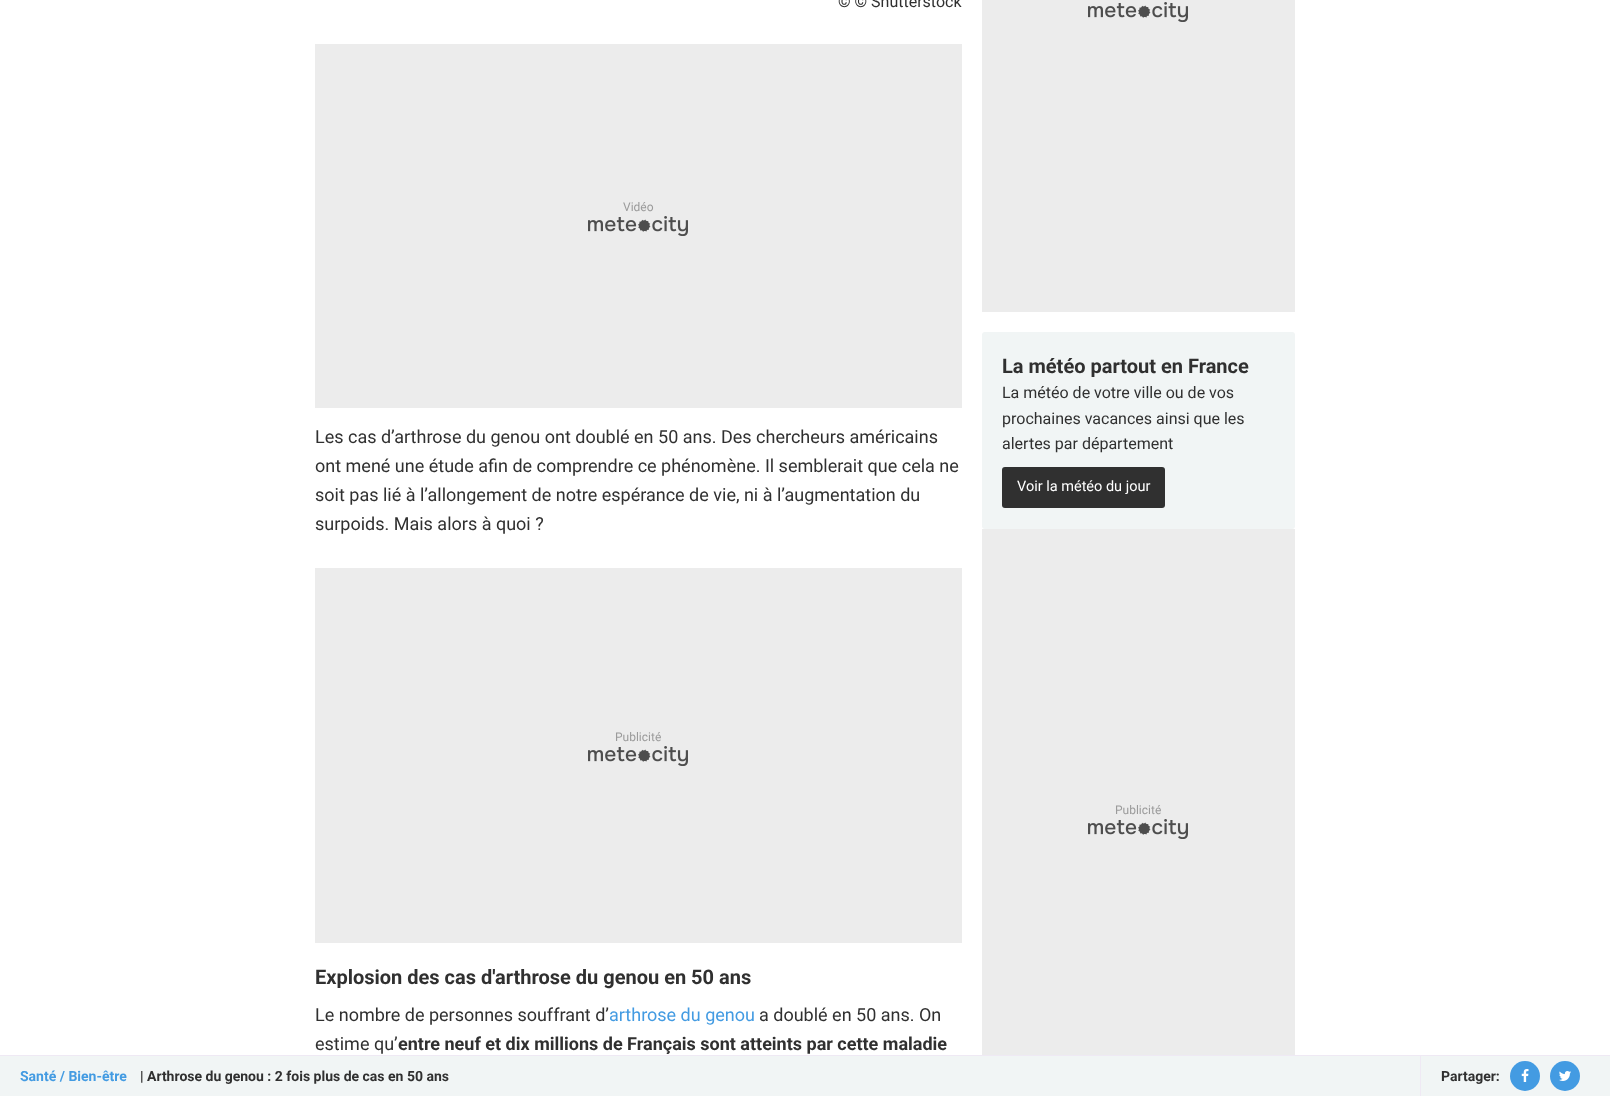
async function draw(canvas) {
  canvas.width = 1610;
  canvas.height = 1096;
  const ctx = canvas.getContext('2d');
  ctx.miterLimit = 4;
  ctx.fontKerning = 'normal';
  function label(s, x, y, font, color) {
    ctx.font = font;
    ctx.fillStyle = color;
    ctx.fillText(s, x, y);
  }
  function rect(x, y, w, h, color) {
    ctx.fillStyle = color;
    ctx.fillRect(x, y, w, h);
  }
  function roundedRect(x, y, w, h, r, color) {
    ctx.fillStyle = color;
    ctx.beginPath();
    ctx.roundRect(x, y, w, h, r);
    ctx.fill();
  }
  async function image(src, x, y, w, h) {
    const img = new Image();
    img.src = src;
    await img.decode();
    ctx.drawImage(img, x, y, w, h);
  }

  rect(0, 0, 1610, 1096, '#fff');
  label('© © Shutterstock', 838, 7, '16px Roboto', '#303030');
  rect(315, 44, 647, 364, '#ececec');
  await image('assets/img1.png', 588, 216, 100, 20);
  label('Vidéo', 623, 211, '12px Roboto', '#9b9b9b');
  label('Les cas d’arthrose du genou ont doublé en 50 ans. Des chercheurs américains', 315, 443, '18px Roboto', '#303030');
  label('ont mené une étude afin de comprendre ce phénomène. Il semblerait que cela ne', 315, 472, '18px Roboto', '#303030');
  label('soit pas lié à l’allongement de notre espérance de vie, ni à l’augmentation du', 315, 501, '18px Roboto', '#303030');
  label('surpoids. Mais alors à quoi ?', 315, 530, '18px Roboto', '#303030');
  rect(315, 568, 647, 375, '#ececec');
  await image('assets/img1.png', 588, 746, 100, 20);
  label('Publicité', 615, 741, '12px Roboto', '#9b9b9b');
  label('Explosion des cas d\'arthrose du genou en 50 ans', 315, 984, 'bold 20px Roboto', '#303030');
  label('Le nombre de personnes souffrant d’', 315, 1021, '18px Roboto', '#303030');
  label('arthrose du genou', 609, 1021, '18px Roboto', '#439be2');
  label('a doublé en 50 ans. On', 759, 1021, '18px Roboto', '#303030');
  label('estime qu’', 315, 1050, '18px Roboto', '#303030');
  label('entre neuf et dix millions de Français sont atteints par cette maladie', 398, 1050, 'bold 18px Roboto', '#303030');
  rect(982, 0, 313, 312, '#ececec');
  await image('assets/img1.png', 1088, 2, 100, 20);
  roundedRect(982, 332, 313, 197, 3, '#f1f5f5');
  label('La météo partout en France', 1002, 373, 'bold 20px Roboto', '#303030');
  label('La météo de votre ville ou de vos', 1002, 398, '16px Roboto', '#303030');
  label('prochaines vacances ainsi que les', 1002, 424, '16px Roboto', '#303030');
  label('alertes par département', 1002, 449, '16px Roboto', '#303030');
  roundedRect(1002, 467, 163, 41, 3, '#303030');
  label('Voir la météo du jour', 1017, 491, '14.5px Roboto', '#fff');
  rect(982, 529, 313, 526, '#ececec');
  await image('assets/img1.png', 1088, 819, 100, 20);
  label('Publicité', 1115, 814, '12px Roboto', '#9b9b9b');
  rect(0, 1056, 1610, 40, '#f1f5f5');
  rect(0, 1055, 1610, 1, '#efe9f4');
  label('Santé / Bien-être', 20, 1081, 'bold 14px Roboto', '#439be2');
  label('| Arthrose du genou : 2 fois plus de cas en 50 ans', 140, 1081, 'bold 14px Roboto', '#303030');
  rect(1420, 1056, 1, 40, '#efe9f4');
  label('Partager:', 1441, 1081, 'bold 14px Roboto', '#303030');
  ctx.fillStyle = '#439be2';
  ctx.beginPath();
  ctx.arc(1525, 1076, 15, 0, 2 * Math.PI);
  ctx.fill();
  await image('assets/img2.png', 1521, 1069, 8, 13);
  ctx.beginPath();
  ctx.arc(1565, 1076, 15, 0, 2 * Math.PI);
  ctx.fill();
  await image('assets/img3.png', 1559, 1071, 12, 10);
}

draw(document.querySelector('canvas'));
